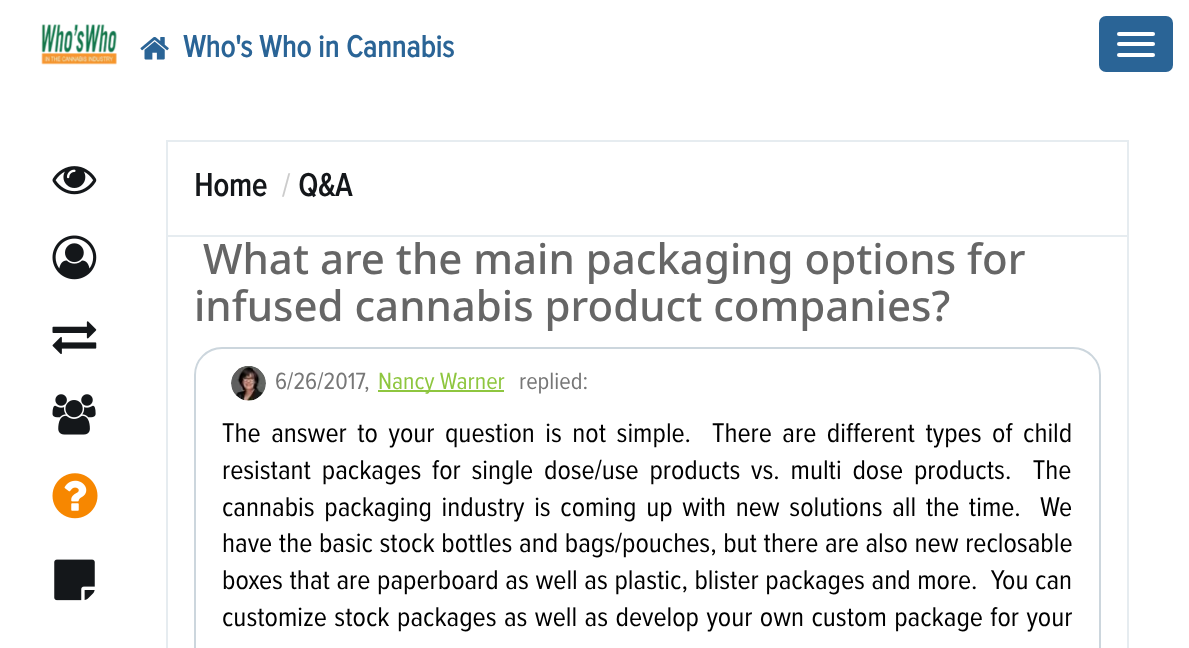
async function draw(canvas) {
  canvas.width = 1189;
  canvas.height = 648;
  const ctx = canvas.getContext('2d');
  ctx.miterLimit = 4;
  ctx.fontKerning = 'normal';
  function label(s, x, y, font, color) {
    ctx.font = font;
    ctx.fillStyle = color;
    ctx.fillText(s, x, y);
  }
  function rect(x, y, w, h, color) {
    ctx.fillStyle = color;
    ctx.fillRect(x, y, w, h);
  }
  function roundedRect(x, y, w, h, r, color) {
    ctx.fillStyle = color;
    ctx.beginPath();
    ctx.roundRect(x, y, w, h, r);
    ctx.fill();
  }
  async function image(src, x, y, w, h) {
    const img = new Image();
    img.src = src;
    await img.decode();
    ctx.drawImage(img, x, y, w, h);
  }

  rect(0, 0, 1189, 648, '#fff');
  await image('assets/img1.png', 41, 24, 76, 41);
  await image('assets/img2.png', 140, 37, 29, 23);
  label('Who\'s Who in Cannabis', 183, 57, 'bold 31.5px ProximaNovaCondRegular', '#2a6496');
  roundedRect(1099, 16, 74, 56, 7, '#2a6496');
  roundedRect(1117, 32, 38, 4, 2, '#fff');
  roundedRect(1117, 42, 38, 4, 2, '#fff');
  roundedRect(1117, 53, 38, 4, 2, '#fff');
  await image('assets/img3.png', 52, 166, 45, 29);
  await image('assets/img4.png', 52, 235, 45, 45);
  await image('assets/img5.png', 52, 321, 45, 33);
  await image('assets/img6.png', 52, 394, 44, 41);
  await image('assets/img7.png', 52, 473, 46, 46);
  await image('assets/img8.png', 54, 559, 41, 42);
  rect(166, 140, 963, 2, '#e6ecf0');
  rect(1127, 140, 2, 508, '#e6ecf0');
  rect(166, 140, 2, 508, '#e6ecf0');
  rect(168, 235, 959, 2, '#e6ecf0');
  label('Home', 194, 196, 'bold 33px ProximaNovaCondRegular', '#14171a');
  label('/', 282, 196, '33px ProximaNovaCondRegular', '#ccc');
  label('Q&A', 298, 196, 'bold 33px ProximaNovaCondRegular', '#14171a');
  label('What are the main packaging options for', 203, 274, '500 42px Noto Sans', '#666');
  label('infused cannabis product companies?', 194, 321, '500 42px Noto Sans', '#666');
  ctx.beginPath();
  ctx.roundRect(195, 348, 905, 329, 27);
  ctx.strokeStyle = '#ccd6dd';
  ctx.lineWidth = 2;
  ctx.stroke();
  await image('assets/img9.png', 231, 366, 35, 35);
  label('6/26/2017', 275, 389, '24.5px ProximaNovaCondRegular', '#777');
  label(',', 364, 389, '24.5px ProximaNovaCondRegular', '#777');
  rect(378, 390, 126, 2, '#8ec63f');
  label('Nancy Warner', 378, 389, '24.5px ProximaNovaCondRegular', '#8ec63f');
  label('replied:', 519, 389, '24.5px ProximaNovaCondRegular', '#777');
  ctx.wordSpacing = '4.5px';
  label('The answer to your question is not simple.  There are different types of child', 222, 442, '28px ProximaNovaCondRegular', '#000');
  ctx.wordSpacing = '4.75px';
  label('resistant packages for single dose/use products vs. multi dose products.  The', 222, 479, '28px ProximaNovaCondRegular', '#000');
  ctx.wordSpacing = '3.6px';
  label('cannabis packaging industry is coming up with new solutions all the time.  We', 222, 516, '28px ProximaNovaCondRegular', '#000');
  ctx.wordSpacing = '0.6px';
  label('have the basic stock bottles and bags/pouches, but there are also new reclosable', 222, 552, '28px ProximaNovaCondRegular', '#000');
  label('boxes that are paperboard as well as plastic, blister packages and more.  You can', 222, 589, '28px ProximaNovaCondRegular', '#000');
  ctx.wordSpacing = '1.4px';
  label('customize stock packages as well as develop your own custom package for your', 222, 626, '28px ProximaNovaCondRegular', '#000');
}

draw(document.querySelector('canvas'));
